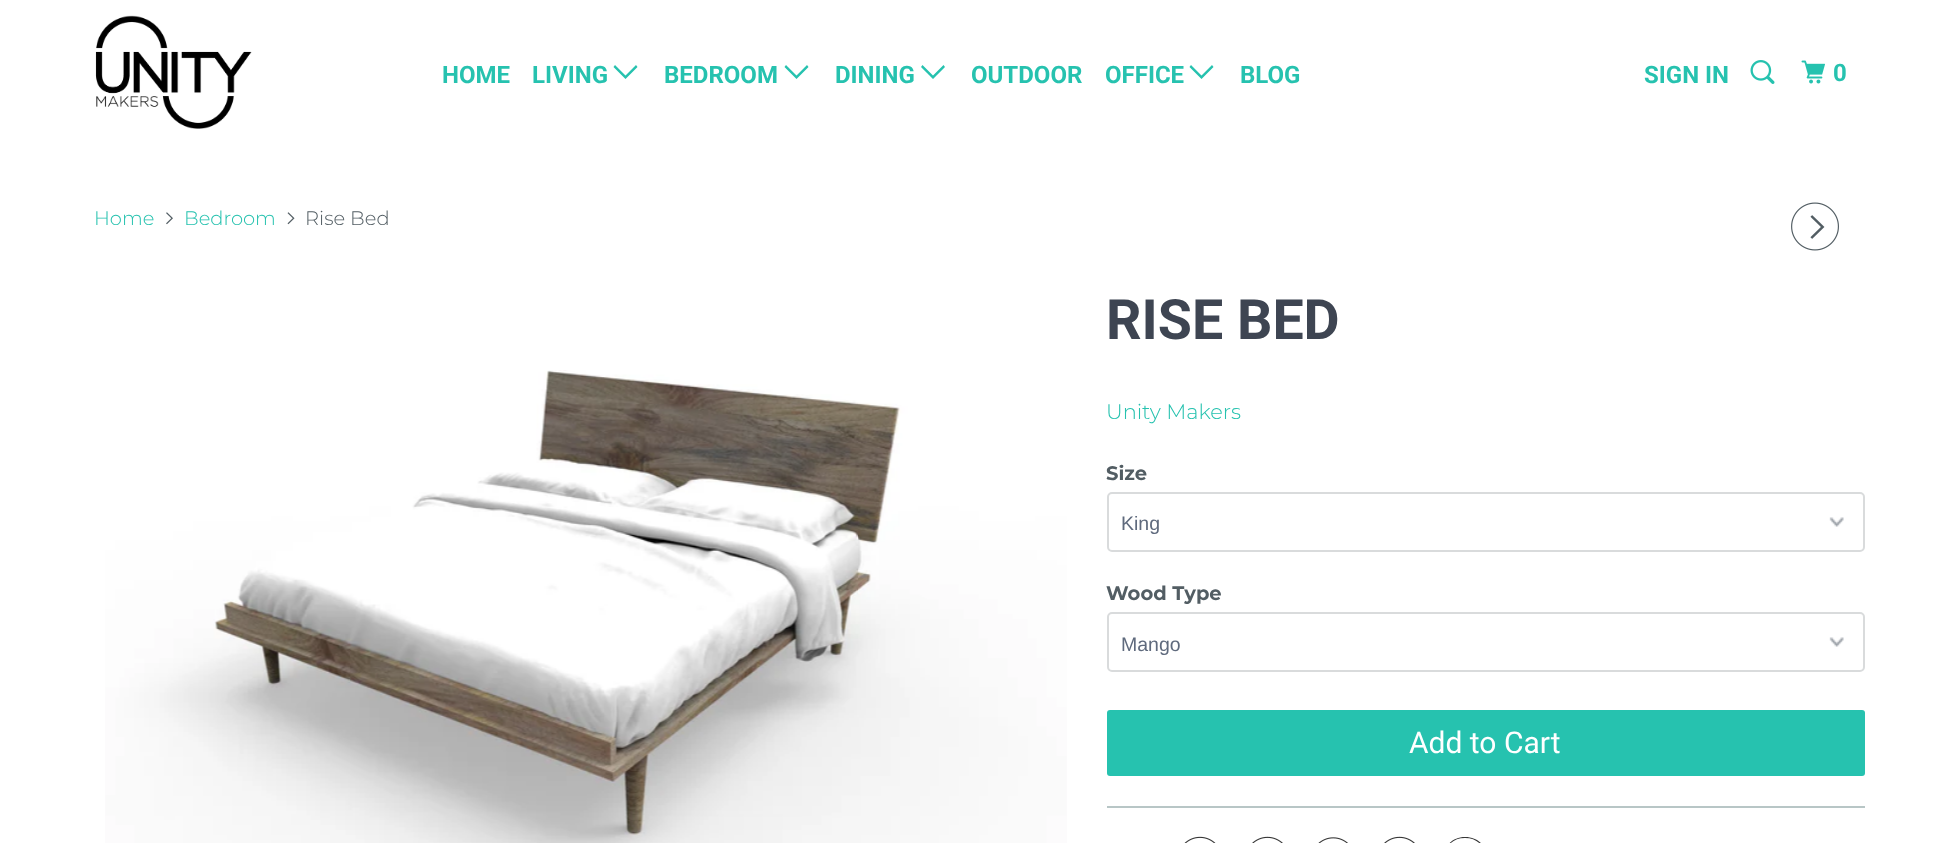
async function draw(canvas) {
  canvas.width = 1957;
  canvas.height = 843;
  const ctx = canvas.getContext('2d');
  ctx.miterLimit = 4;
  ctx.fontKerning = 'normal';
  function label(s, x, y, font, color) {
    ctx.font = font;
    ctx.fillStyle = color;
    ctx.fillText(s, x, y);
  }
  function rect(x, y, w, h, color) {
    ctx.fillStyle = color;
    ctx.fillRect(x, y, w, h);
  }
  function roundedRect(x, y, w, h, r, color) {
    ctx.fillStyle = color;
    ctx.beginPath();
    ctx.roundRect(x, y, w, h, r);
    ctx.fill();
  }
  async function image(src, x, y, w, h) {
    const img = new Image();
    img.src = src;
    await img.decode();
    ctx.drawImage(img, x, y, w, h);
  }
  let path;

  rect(0, 0, 1957, 843, '#fff');
  await image('assets/img1.png', 95, 15, 157, 114);
  label('HOME', 442, 83, 'bold 24px Roboto', '#26c2af');
  label('LIVING', 532, 83, 'bold 24px Roboto', '#26c2af');
  path = new Path2D('M619.5 73L613.5 67L615 65L625.5 75.5L636 65L637.5 67L625.5 79Z');
  ctx.fill(path);
  label('BEDROOM', 664, 83, 'bold 24px Roboto', '#26c2af');
  path = new Path2D('M790.5 73L784.5 67L786 65L796.5 75.5L807 65L808.5 67L796.5 79Z');
  ctx.fill(path);
  label('DINING', 835, 83, 'bold 24px Roboto', '#26c2af');
  path = new Path2D('M927 73L921 67L922.5 65L933 75.5L943.5 65L945 67L933 79Z');
  ctx.fill(path);
  label('OUTDOOR', 971, 83, 'bold 24px Roboto', '#26c2af');
  label('OFFICE', 1105, 83, 'bold 24px Roboto', '#26c2af');
  path = new Path2D('M1195.5 73L1189.5 67L1191 65L1201.5 75.5L1212 65L1213.5 67L1201.5 79Z');
  ctx.fill(path);
  label('BLOG', 1240, 83, 'bold 24px Roboto', '#26c2af');
  label('SIGN IN', 1644, 83, 'bold 24px Roboto', '#26c2af');
  await image('assets/img2.png', 1750, 60, 25, 24);
  await image('assets/img3.png', 1801, 60, 24, 24);
  label('0', 1833, 81, 'bold 24px Roboto', '#26c2af');
  label('Home', 94, 225, '300 19.5px Montserrat', '#26c2af');
  await image('assets/img4.png', 166, 212, 7, 13);
  label('Bedroom', 184, 225, '300 19.5px Montserrat', '#26c2af');
  await image('assets/img5.png', 287, 212, 8, 13);
  label('Rise Bed', 305, 225, '300 19.5px Montserrat', '#525d63');
  await image('assets/img6.png', 1791, 202, 48, 49);
  await image('assets/img7.png', 105, 370, 962, 473);
  label('RISE BED', 1106, 339, 'bold 55.5px Roboto', '#3e4552');
  label('Unity Makers', 1106, 419, '300 21px Montserrat', '#26c2af');
  label('Size', 1106, 480, 'bold 19.5px Montserrat', '#525d63');
  await image('assets/img8.png', 1829, 517, 15, 10);
  ctx.beginPath();
  ctx.roundRect(1108, 493, 756, 58, 4);
  ctx.strokeStyle = '#d9dbdc';
  ctx.lineWidth = 2;
  ctx.stroke();
  label('King', 1121, 530, '19.5px Liberation Sans', '#5f6a7d');
  label('Wood Type', 1106, 600, 'bold 19.5px Montserrat', '#525d63');
  await image('assets/img8.png', 1829, 637, 15, 10);
  ctx.beginPath();
  ctx.roundRect(1108, 613, 756, 58, 4);
  ctx.stroke();
  label('Mango', 1121, 651, '19.5px Liberation Sans', '#5f6a7d');
  roundedRect(1107, 710, 758, 66, 3, '#26c2af');
  label('Add to Cart', 1409, 753, '30px Roboto', '#fff');
  rect(1107, 806, 758, 2, '#b8c6c6');
  await image('assets/img9.png', 1184, 836, 32, 7);
  await image('assets/img10.png', 1252, 836, 31, 7);
  await image('assets/img11.png', 1318, 837, 30, 6);
  await image('assets/img12.png', 1384, 836, 31, 7);
  ctx.fillStyle = '#363636';
  path = new Path2D('M1469 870L1465 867L1461 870V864L1469 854L1459 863L1453 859L1474 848ZM1465 838C1437 838 1437 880 1465 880C1493 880 1493 838 1465 838ZM1465 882C1436 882 1436 837 1465 837C1495 837 1495 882 1465 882Z');
  ctx.fill(path);
}

draw(document.querySelector('canvas'));
